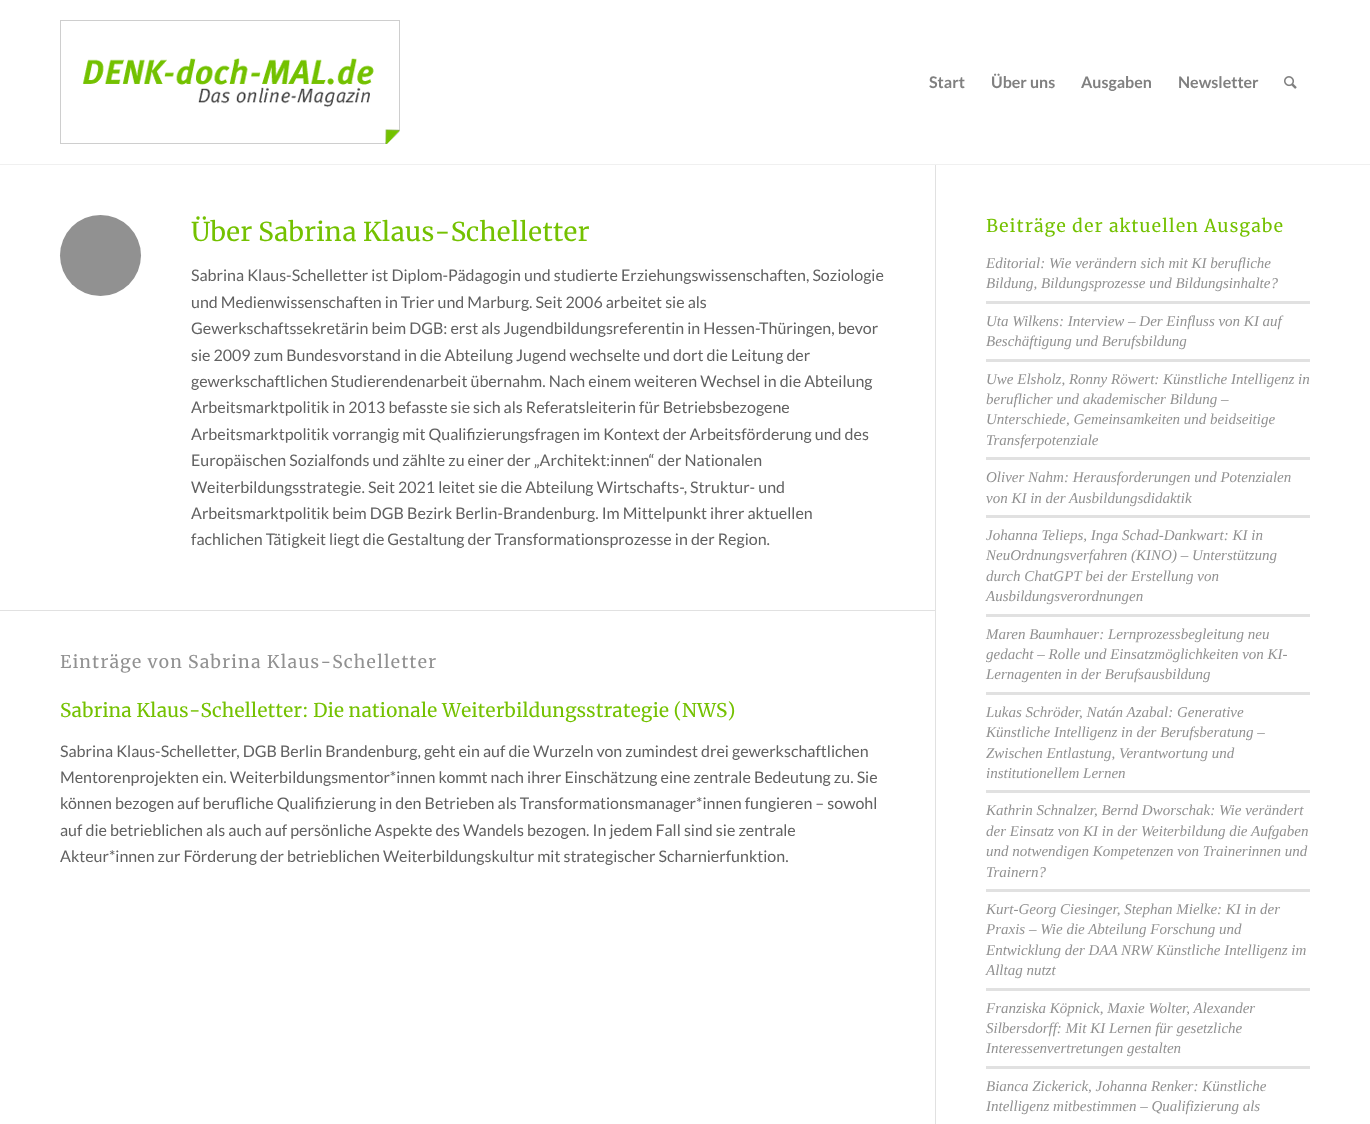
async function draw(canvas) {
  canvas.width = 1370;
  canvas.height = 1124;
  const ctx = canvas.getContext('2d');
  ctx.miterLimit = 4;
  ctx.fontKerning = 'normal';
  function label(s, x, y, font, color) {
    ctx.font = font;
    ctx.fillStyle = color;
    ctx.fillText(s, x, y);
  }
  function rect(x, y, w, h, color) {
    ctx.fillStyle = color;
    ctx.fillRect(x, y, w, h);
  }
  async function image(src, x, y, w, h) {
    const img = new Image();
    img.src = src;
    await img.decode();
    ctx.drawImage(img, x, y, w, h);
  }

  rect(0, 0, 1370, 1124, '#fff');
  rect(0, 164, 1370, 1, '#f0f0f0');
  await image('assets/img1.png', 60, 20, 340, 124);
  label('Start', 929, 88, 'bold 16px Lato', '#808080');
  label('Über uns', 991, 88, 'bold 16px Lato', '#808080');
  label('Ausgaben', 1081, 88, 'bold 16px Lato', '#808080');
  label('Newsletter', 1178, 88, 'bold 16px Lato', '#808080');
  await image('assets/img2.png', 1284, 76, 13, 13);
  ctx.fillStyle = '#919191';
  ctx.beginPath();
  ctx.arc(100.5, 255.5, 40.5, 0, 2 * Math.PI);
  ctx.fill();
  label('Über Sabrina Klaus-Schelletter', 191, 241, '26px Merriweather', '#74c100');
  label('Sabrina Klaus-Schelletter ist Diplom-Pädagogin und studierte Erziehungswissenschaften, Soziologie', 191, 281, '16px Lato', '#616161');
  label('und Medienwissenschaften in Trier und Marburg. Seit 2006 arbeitet sie als', 191, 308, '16px Lato', '#616161');
  label('Gewerkschaftssekretärin beim DGB: erst als Jugendbildungsreferentin in Hessen-Thüringen, bevor', 191, 334, '16px Lato', '#616161');
  label('sie 2009 zum Bundesvorstand in die Abteilung Jugend wechselte und dort die Leitung der', 191, 361, '16px Lato', '#616161');
  label('gewerkschaftlichen Studierendenarbeit übernahm. Nach einem weiteren Wechsel in die Abteilung', 191, 387, '16px Lato', '#616161');
  label('Arbeitsmarktpolitik in 2013 befasste sie sich als Referatsleiterin für Betriebsbezogene', 191, 413, '16px Lato', '#616161');
  label('Arbeitsmarktpolitik vorrangig mit Qualifizierungsfragen im Kontext der Arbeitsförderung und des', 191, 440, '16px Lato', '#616161');
  label('Europäischen Sozialfonds und zählte zu einer der „Architekt:innen“ der Nationalen', 191, 466, '16px Lato', '#616161');
  label('Weiterbildungsstrategie. Seit 2021 leitet sie die Abteilung Wirtschafts-, Struktur- und', 191, 493, '16px Lato', '#616161');
  label('Arbeitsmarktpolitik beim DGB Bezirk Berlin-Brandenburg. Im Mittelpunkt ihrer aktuellen', 191, 519, '16px Lato', '#616161');
  label('fachlichen Tätigkeit liegt die Gestaltung der Transformationsprozesse in der Region.', 191, 545, '16px Lato', '#616161');
  rect(0, 610, 935, 1, '#e1e1e1');
  ctx.letterSpacing = '1px';
  label('Einträge von Sabrina Klaus-Schelletter', 60, 668, '17.6px Merriweather', '#919191');
  ctx.letterSpacing = '0px';
  label('Sabrina Klaus-Schelletter: Die nationale Weiterbildungsstrategie (NWS)', 60, 717, '19px Merriweather', '#74c100');
  label('Sabrina Klaus-Schelletter, DGB Berlin Brandenburg, geht ein auf die Wurzeln von zumindest drei gewerkschaftlichen', 60, 757, '16px Lato', '#616161');
  label('Mentorenprojekten ein. Weiterbildungsmentor*innen kommt nach ihrer Einschätzung eine zentrale Bedeutung zu. Sie', 60, 783, '16px Lato', '#616161');
  label('können bezogen auf berufliche Qualifizierung in den Betrieben als Transformationsmanager*innen fungieren – sowohl', 60, 809, '16px Lato', '#616161');
  label('auf die betrieblichen als auch auf persönliche Aspekte des Wandels bezogen. In jedem Fall sind sie zentrale', 60, 836, '16px Lato', '#616161');
  label('Akteur*innen zur Förderung der betrieblichen Weiterbildungskultur mit strategischer Scharnierfunktion.', 60, 862, '16px Lato', '#616161');
  rect(935, 165, 1, 959, '#e1e1e1');
  ctx.letterSpacing = '1px';
  label('Beiträge der aktuellen Ausgabe', 986, 232, '17.6px Merriweather', '#74c100');
  ctx.letterSpacing = '0px';
  label('Editorial: Wie verändern sich mit KI berufliche', 986, 268, 'italic 15px Liberation Serif', '#919191');
  label('Bildung, Bildungsprozesse und Bildungsinhalte?', 986, 288, 'italic 15px Liberation Serif', '#919191');
  rect(986, 301, 324, 3, '#e1e1e1');
  label('Uta Wilkens: Interview – Der Einfluss von KI auf', 986, 326, 'italic 15px Liberation Serif', '#919191');
  label('Beschäftigung und Berufsbildung', 986, 346, 'italic 15px Liberation Serif', '#919191');
  rect(986, 359, 324, 3, '#e1e1e1');
  label('Uwe Elsholz, Ronny Röwert: Künstliche Intelligenz in', 986, 384, 'italic 15px Liberation Serif', '#919191');
  label('beruflicher und akademischer Bildung –', 986, 404, 'italic 15px Liberation Serif', '#919191');
  label('Unterschiede, Gemeinsamkeiten und beidseitige', 986, 424, 'italic 15px Liberation Serif', '#919191');
  label('Transferpotenziale', 986, 445, 'italic 15px Liberation Serif', '#919191');
  rect(986, 457, 324, 3, '#e1e1e1');
  label('Oliver Nahm: Herausforderungen und Potenzialen', 986, 482, 'italic 15px Liberation Serif', '#919191');
  label('von KI in der Ausbildungsdidaktik', 986, 503, 'italic 15px Liberation Serif', '#919191');
  rect(986, 515, 324, 3, '#e1e1e1');
  label('Johanna Telieps, Inga Schad-Dankwart: KI in', 986, 540, 'italic 15px Liberation Serif', '#919191');
  label('NeuOrdnungsverfahren (KINO) – Unterstützung', 986, 560, 'italic 15px Liberation Serif', '#919191');
  label('durch ChatGPT bei der Erstellung von', 986, 581, 'italic 15px Liberation Serif', '#919191');
  label('Ausbildungsverordnungen', 986, 601, 'italic 15px Liberation Serif', '#919191');
  rect(986, 614, 324, 3, '#e1e1e1');
  label('Maren Baumhauer: Lernprozessbegleitung neu', 986, 639, 'italic 15px Liberation Serif', '#919191');
  label('gedacht – Rolle und Einsatzmöglichkeiten von KI-', 986, 659, 'italic 15px Liberation Serif', '#919191');
  label('Lernagenten in der Berufsausbildung', 986, 679, 'italic 15px Liberation Serif', '#919191');
  rect(986, 692, 324, 3, '#e1e1e1');
  label('Lukas Schröder, Natán Azabal: Generative', 986, 717, 'italic 15px Liberation Serif', '#919191');
  label('Künstliche Intelligenz in der Berufsberatung –', 986, 737, 'italic 15px Liberation Serif', '#919191');
  label('Zwischen Entlastung, Verantwortung und', 986, 758, 'italic 15px Liberation Serif', '#919191');
  label('institutionellem Lernen', 986, 778, 'italic 15px Liberation Serif', '#919191');
  rect(986, 790, 324, 3, '#e1e1e1');
  label('Kathrin Schnalzer, Bernd Dworschak: Wie verändert', 986, 815, 'italic 15px Liberation Serif', '#919191');
  label('der Einsatz von KI in der Weiterbildung die Aufgaben', 986, 836, 'italic 15px Liberation Serif', '#919191');
  label('und notwendigen Kompetenzen von Trainerinnen und', 986, 856, 'italic 15px Liberation Serif', '#919191');
  label('Trainern?', 986, 877, 'italic 15px Liberation Serif', '#919191');
  rect(986, 889, 324, 3, '#e1e1e1');
  label('Kurt-Georg Ciesinger, Stephan Mielke: KI in der', 986, 914, 'italic 15px Liberation Serif', '#919191');
  label('Praxis – Wie die Abteilung Forschung und', 986, 934, 'italic 15px Liberation Serif', '#919191');
  label('Entwicklung der DAA NRW Künstliche Intelligenz im', 986, 955, 'italic 15px Liberation Serif', '#919191');
  label('Alltag nutzt', 986, 975, 'italic 15px Liberation Serif', '#919191');
  rect(986, 988, 324, 3, '#e1e1e1');
  label('Franziska Köpnick, Maxie Wolter, Alexander', 986, 1013, 'italic 15px Liberation Serif', '#919191');
  label('Silbersdorff: Mit KI Lernen für gesetzliche', 986, 1033, 'italic 15px Liberation Serif', '#919191');
  label('Interessenvertretungen gestalten', 986, 1053, 'italic 15px Liberation Serif', '#919191');
  rect(986, 1066, 324, 3, '#e1e1e1');
  label('Bianca Zickerick, Johanna Renker: Künstliche', 986, 1091, 'italic 15px Liberation Serif', '#919191');
  label('Intelligenz mitbestimmen – Qualifizierung als', 986, 1111, 'italic 15px Liberation Serif', '#919191');
}

draw(document.querySelector('canvas'));
